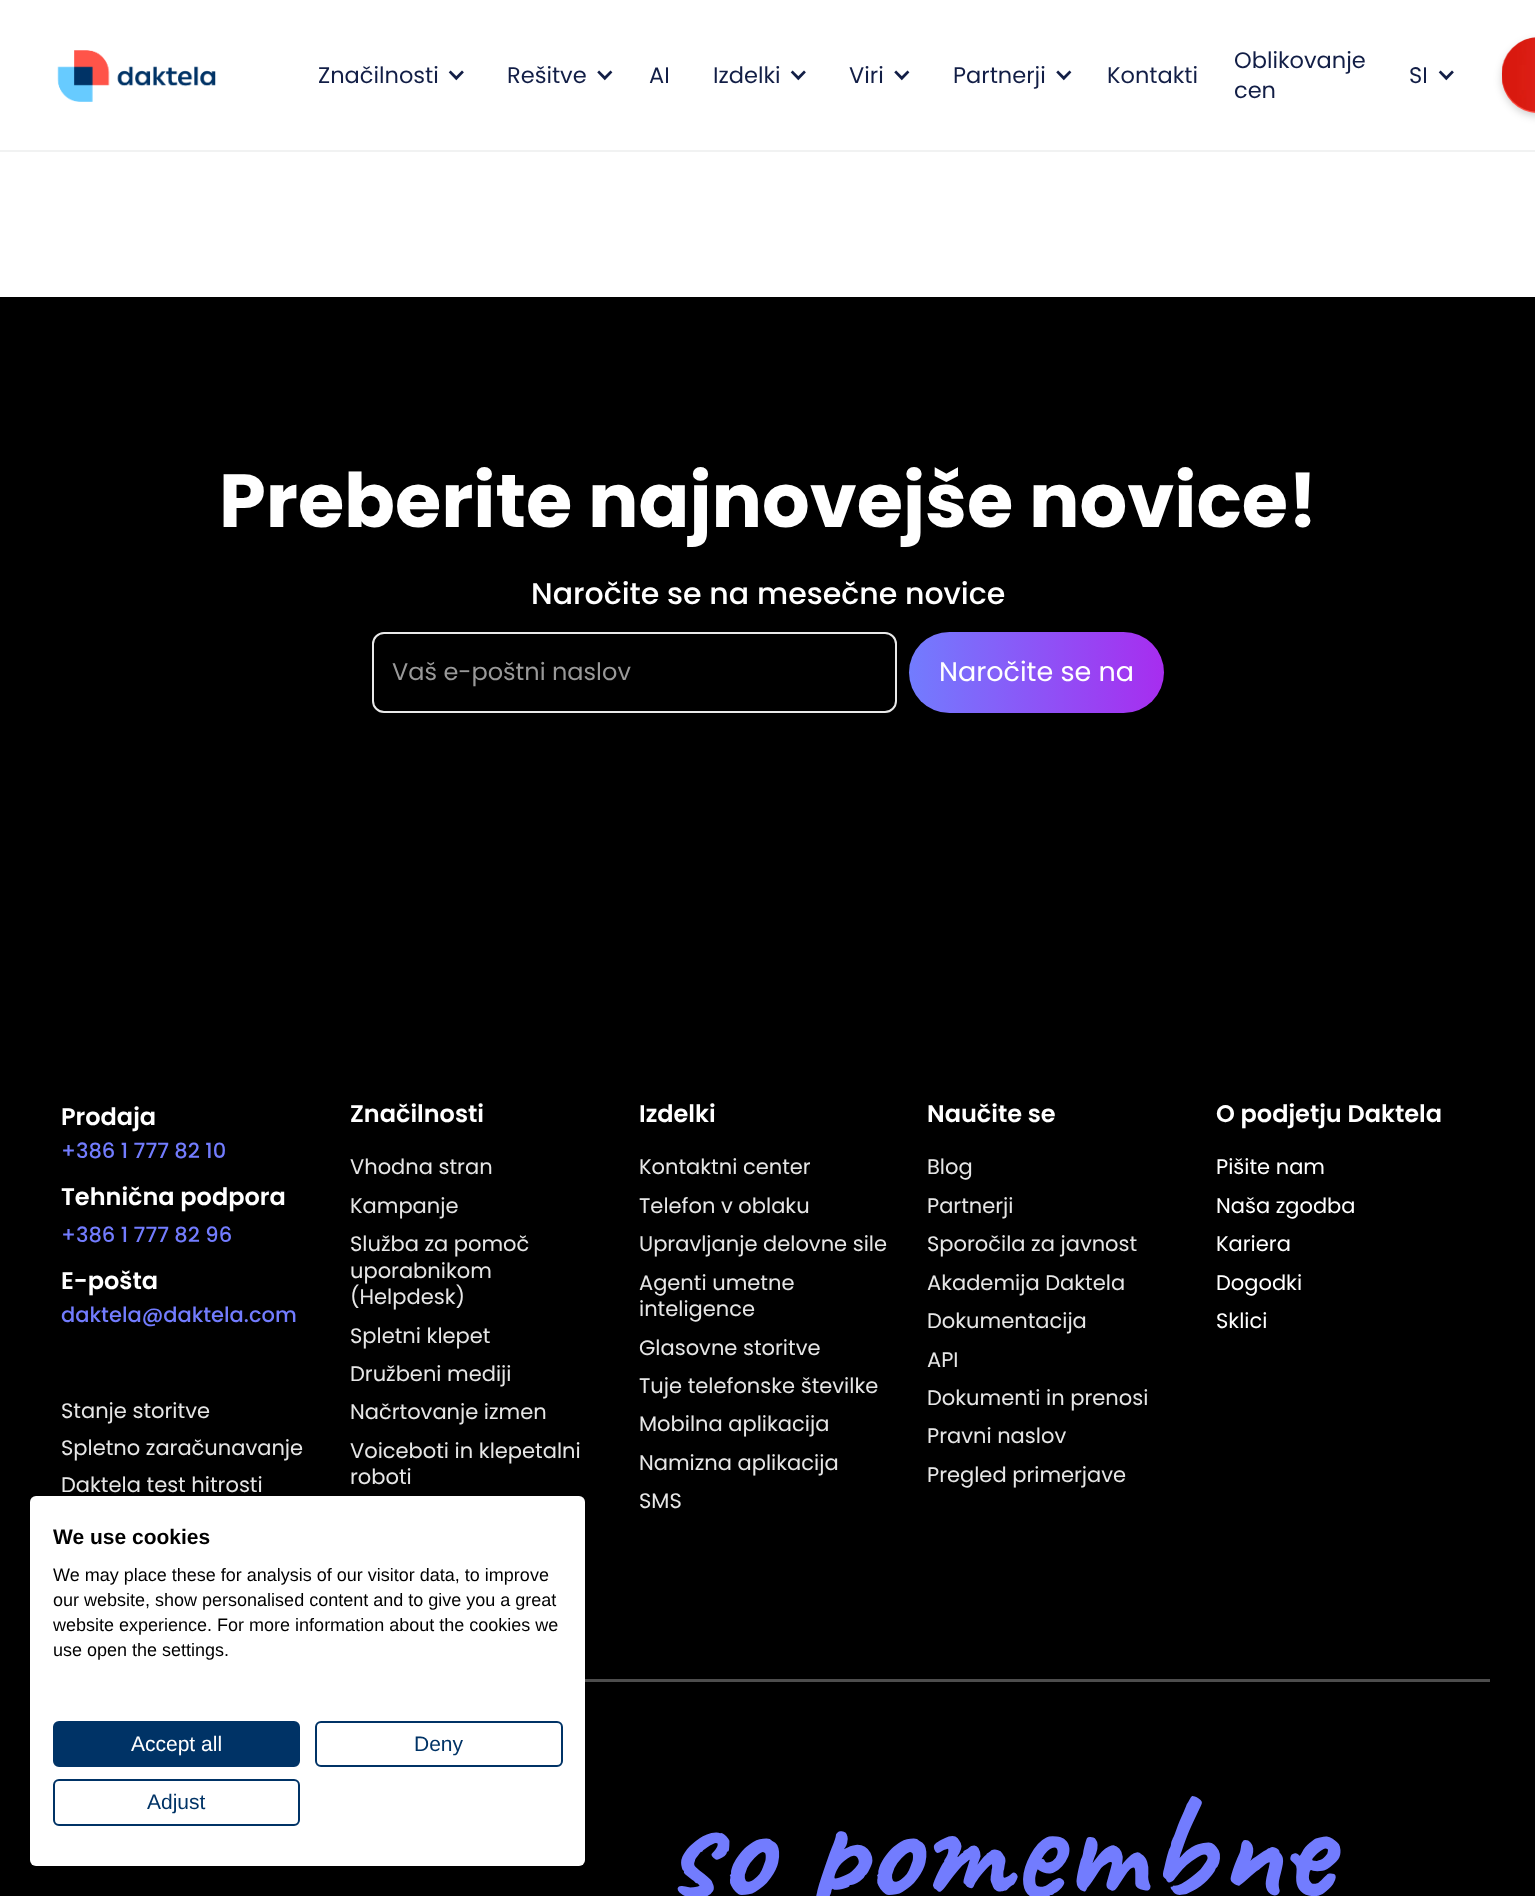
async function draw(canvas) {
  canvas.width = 1535;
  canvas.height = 1896;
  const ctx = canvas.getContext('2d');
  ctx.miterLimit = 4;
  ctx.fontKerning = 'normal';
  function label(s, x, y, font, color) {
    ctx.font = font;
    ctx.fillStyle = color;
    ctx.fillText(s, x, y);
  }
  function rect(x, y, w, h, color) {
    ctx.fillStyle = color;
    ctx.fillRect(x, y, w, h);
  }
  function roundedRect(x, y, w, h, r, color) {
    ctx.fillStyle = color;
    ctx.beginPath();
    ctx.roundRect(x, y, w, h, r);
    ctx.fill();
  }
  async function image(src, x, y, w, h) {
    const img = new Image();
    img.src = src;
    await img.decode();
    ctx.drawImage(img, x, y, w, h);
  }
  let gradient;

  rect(0, 0, 1535, 1896, '#fff');
  rect(0, 150, 1535, 2, '#f1f2f2');
  await image('assets/img1.png', 57, 50, 159, 52);
  label('Značilnosti', 318, 83, '22.5px Poppins', '#121e46');
  await image('assets/img2.png', 448, 70, 16, 11);
  label('Rešitve', 507, 83, '22.5px Poppins', '#121e46');
  await image('assets/img3.png', 597, 70, 16, 11);
  label('AI', 649, 83, '22.5px Poppins', '#121e46');
  label('Izdelki', 713, 83, '22.5px Poppins', '#121e46');
  await image('assets/img2.png', 790, 70, 16, 11);
  label('Viri', 849, 83, '22.5px Poppins', '#121e46');
  await image('assets/img3.png', 894, 70, 16, 11);
  label('Partnerji', 953, 83, '22.5px Poppins', '#121e46');
  await image('assets/img3.png', 1056, 70, 16, 11);
  label('Kontakti', 1107, 83, '22.5px Poppins', '#121e46');
  label('Oblikovanje', 1234, 68, '22.5px Poppins', '#121e46');
  label('cen', 1234, 98, '22.5px Poppins', '#121e46');
  label('SI', 1409, 83, '22.5px Poppins', '#121e46');
  await image('assets/img2.png', 1438, 70, 16, 11);
  ctx.fillStyle = '#00000033';
  ctx.filter = 'blur(4px)';
  ctx.beginPath();
  ctx.roundRect(1502, 41, 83, 75, 37.5);
  ctx.fill();
  ctx.filter = 'none';
  roundedRect(1502, 38, 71, 75, 37.5, '#ff5349');
  await image('assets/img4.png', 1502, 37, 33, 75);
  rect(0, 297, 1535, 1599, '#000');
  label('Preberite najnovejše novice!', 219, 527, 'bold 75px Poppins', '#fff');
  label('Naročite se na mesečne novice', 531, 604, '500 30px Poppins', '#fff');
  ctx.beginPath();
  ctx.roundRect(373, 633, 523, 79, 11);
  ctx.strokeStyle = '#eaeaea';
  ctx.lineWidth = 2;
  ctx.stroke();
  label('Vaš e-poštni naslov', 392, 680, '24px Poppins', '#999');
  gradient = ctx.createLinearGradient(909, 672, 1164, 672);
  gradient.addColorStop(0, '#727cfe');
  gradient.addColorStop(1, '#a72def');
  ctx.fillStyle = gradient;
  ctx.beginPath();
  ctx.roundRect(909, 632, 255, 81, 40.5);
  ctx.fill();
  label('Naročite se na', 939, 681, '27px Poppins', '#fff');
  label('Prodaja', 61, 1125, '600 24px Poppins', '#fff');
  label('+386 1 777 82 10', 61, 1158, '500 21px Poppins', '#727cfe');
  label('Tehnična podpora', 61, 1205, '600 24px Poppins', '#fff');
  label('+386 1 777 82 96', 61, 1242, '500 21px Poppins', '#727cfe');
  label('E-pošta', 61, 1289, '600 24px Poppins', '#fff');
  label('daktela@daktela.com', 61, 1322, '500 21px Poppins', '#727cfe');
  label('Stanje storitve', 61, 1418, '21px Poppins', '#e6e6e6');
  label('Spletno zaračunavanje', 61, 1455, '21px Poppins', '#e6e6e6');
  label('Daktela test hitrosti', 61, 1492, '21px Poppins', '#e6e6e6');
  label('Značilnosti', 350, 1122, '600 24px Poppins', '#fff');
  label('Vhodna stran', 350, 1174, '21px Poppins', '#e6e6e6');
  label('Kampanje', 350, 1213, '21px Poppins', '#e6e6e6');
  label('Služba za pomoč', 350, 1251, '21px Poppins', '#e6e6e6');
  label('uporabnikom', 350, 1278, '21px Poppins', '#e6e6e6');
  label('(Helpdesk)', 350, 1304, '21px Poppins', '#e6e6e6');
  label('Spletni klepet', 350, 1343, '21px Poppins', '#e6e6e6');
  label('Družbeni mediji', 350, 1381, '21px Poppins', '#e6e6e6');
  label('Načrtovanje izmen', 350, 1419, '21px Poppins', '#e6e6e6');
  label('Voiceboti in klepetalni', 350, 1458, '21px Poppins', '#e6e6e6');
  label('roboti', 350, 1484, '21px Poppins', '#e6e6e6');
  label('Izdelki', 639, 1122, '600 24px Poppins', '#fff');
  label('Kontaktni center', 639, 1174, '21px Poppins', '#e6e6e6');
  label('Telefon v oblaku', 639, 1213, '21px Poppins', '#e6e6e6');
  label('Upravljanje delovne sile', 639, 1251, '21px Poppins', '#e6e6e6');
  label('Agenti umetne', 639, 1290, '21px Poppins', '#e6e6e6');
  label('inteligence', 639, 1316, '21px Poppins', '#e6e6e6');
  label('Glasovne storitve', 639, 1355, '21px Poppins', '#e6e6e6');
  label('Tuje telefonske številke', 639, 1393, '21px Poppins', '#e6e6e6');
  label('Mobilna aplikacija', 639, 1431, '21px Poppins', '#e6e6e6');
  label('Namizna aplikacija', 639, 1470, '21px Poppins', '#e6e6e6');
  label('SMS', 639, 1508, '21px Poppins', '#e6e6e6');
  label('Naučite se', 927, 1122, '600 24px Poppins', '#fff');
  label('Blog', 927, 1174, '21px Poppins', '#e6e6e6');
  label('Partnerji', 927, 1213, '21px Poppins', '#e6e6e6');
  label('Sporočila za javnost', 927, 1251, '21px Poppins', '#e6e6e6');
  label('Akademija Daktela', 927, 1290, '21px Poppins', '#e6e6e6');
  label('Dokumentacija', 927, 1328, '21px Poppins', '#e6e6e6');
  label('API', 927, 1367, '21px Poppins', '#e6e6e6');
  label('Dokumenti in prenosi', 927, 1405, '21px Poppins', '#e6e6e6');
  label('Pravni naslov', 927, 1443, '21px Poppins', '#e6e6e6');
  label('Pregled primerjave', 927, 1482, '21px Poppins', '#e6e6e6');
  label('O podjetju Daktela', 1216, 1122, '600 24px Poppins', '#fff');
  label('Pišite nam', 1216, 1174, '21px Poppins', '#fff');
  label('Naša zgodba', 1216, 1213, '21px Poppins', '#fff');
  label('Kariera', 1216, 1251, '21px Poppins', '#fff');
  label('Dogodki', 1216, 1290, '21px Poppins', '#fff');
  label('Sklici', 1216, 1328, '21px Poppins', '#fff');
  rect(585, 1679, 905, 3, '#4d4d4d');
  label('so pomembne', 664, 1896, 'bold 150px Caveat', '#727cfe');
  roundedRect(30, 1496, 555, 370, 6, '#fff');
  label('We use cookies', 53, 1544, 'bold 21px Liberation Sans', '#000');
  label('We may place these for analysis of our visitor data, to improve', 53, 1581, '18px Liberation Sans', '#000');
  label('our website, show personalised content and to give you a great', 53, 1606, '18px Liberation Sans', '#000');
  label('website experience. For more information about the cookies we', 53, 1631, '18px Liberation Sans', '#000');
  label('use open the settings.', 53, 1656, '18px Liberation Sans', '#000');
  ctx.fillStyle = '#036';
  ctx.beginPath();
  ctx.roundRect(54, 1722, 245, 44, 5);
  ctx.fill();
  ctx.strokeStyle = '#036';
  ctx.stroke();
  label('Accept all', 131, 1751, '21px Liberation Sans', '#fff');
  ctx.beginPath();
  ctx.roundRect(316, 1722, 246, 44, 5);
  ctx.stroke();
  label('Deny', 414, 1751, '21px Liberation Sans', '#036');
  ctx.beginPath();
  ctx.roundRect(54, 1780, 245, 45, 5);
  ctx.stroke();
  label('Adjust', 147, 1809, '21px Liberation Sans', '#036');
}

draw(document.querySelector('canvas'));
